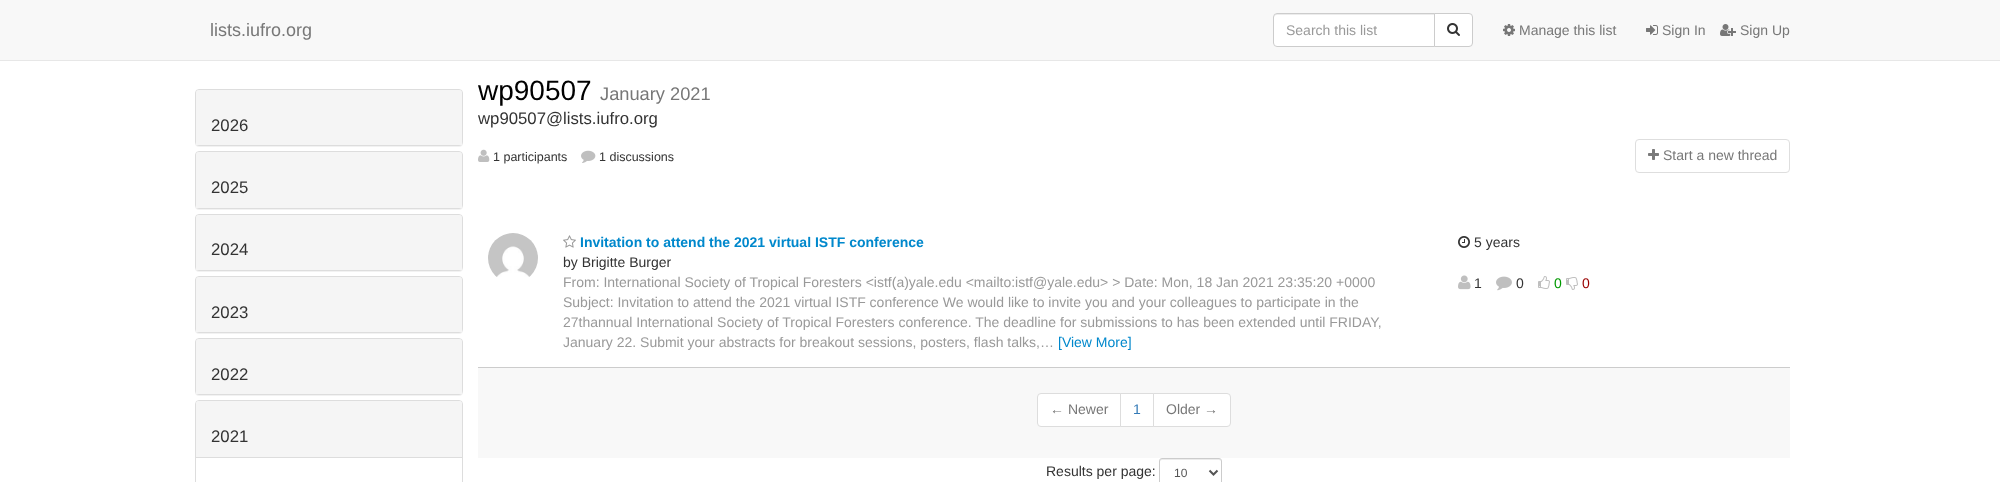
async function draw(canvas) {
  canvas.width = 2000;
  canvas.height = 482;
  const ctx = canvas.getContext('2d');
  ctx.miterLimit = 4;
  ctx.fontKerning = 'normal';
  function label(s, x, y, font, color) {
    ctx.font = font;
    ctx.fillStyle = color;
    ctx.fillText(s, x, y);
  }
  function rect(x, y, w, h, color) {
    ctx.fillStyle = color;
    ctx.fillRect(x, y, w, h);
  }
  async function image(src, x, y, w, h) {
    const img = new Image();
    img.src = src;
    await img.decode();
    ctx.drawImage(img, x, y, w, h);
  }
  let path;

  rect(0, 0, 2000, 482, '#fff');
  rect(0, 0, 2000, 60, '#f8f8f8');
  rect(0, 60, 2000, 1, '#e7e7e7');
  label('lists.iufro.org', 210, 36, '18px Liberation Sans', '#777');
  ctx.fillStyle = '#fff';
  ctx.beginPath();
  ctx.roundRect(1273, 13, 162, 34, [4, 0, 0, 4]);
  ctx.fill();
  ctx.fillStyle = '#ececec';
  path = new Path2D('M1277 15H1434V14H1276C1274 14 1274 16 1274 18C1274 16 1275 15 1277 15Z');
  ctx.fill(path);
  ctx.beginPath();
  ctx.roundRect(1273.5, 13.5, 161, 33, [3.5, 0, 0, 3.5]);
  ctx.strokeStyle = '#ccc';
  ctx.stroke();
  label('Search this list', 1286, 35, '14px Liberation Sans', '#999');
  ctx.fillStyle = '#fff';
  ctx.beginPath();
  ctx.roundRect(1434.5, 13.5, 38, 33, [0, 3.5, 3.5, 0]);
  ctx.fill();
  ctx.stroke();
  await image('assets/img1.png', 1447, 23, 13, 13);
  await image('assets/img2.png', 1503, 24, 12, 12);
  label('Manage this list', 1519, 35, '14px Liberation Sans', '#777');
  await image('assets/img3.png', 1646, 25, 12, 10);
  label('Sign In', 1662, 35, '14px Liberation Sans', '#777');
  await image('assets/img4.png', 1720, 24, 16, 12);
  label('Sign Up', 1740, 35, '14px Liberation Sans', '#777');
  ctx.fillStyle = '#0000000d';
  ctx.filter = 'blur(0.5px)';
  ctx.beginPath();
  ctx.roundRect(195, 90, 268, 57, 4);
  ctx.fill();
  ctx.filter = 'none';
  ctx.beginPath();
  ctx.roundRect(195.5, 89.5, 267, 56, 3.5);
  ctx.strokeStyle = '#ddd';
  ctx.stroke();
  ctx.fillStyle = '#f5f5f5';
  ctx.beginPath();
  ctx.roundRect(196, 90, 266, 55, [3, 3, 0, 0]);
  ctx.fill();
  label('2026', 211, 131, '16.75px Liberation Sans', '#333');
  ctx.fillStyle = '#0000000d';
  ctx.filter = 'blur(0.5px)';
  ctx.beginPath();
  ctx.roundRect(195, 152, 268, 58, 4);
  ctx.fill();
  ctx.filter = 'none';
  ctx.beginPath();
  ctx.roundRect(195.5, 151.5, 267, 57, 3.5);
  ctx.stroke();
  ctx.fillStyle = '#f5f5f5';
  ctx.beginPath();
  ctx.roundRect(196, 152, 266, 56, [3, 3, 0, 0]);
  ctx.fill();
  label('2025', 211, 193, '16.75px Liberation Sans', '#333');
  ctx.fillStyle = '#0000000d';
  ctx.filter = 'blur(0.5px)';
  ctx.beginPath();
  ctx.roundRect(195, 215, 268, 57, 4);
  ctx.fill();
  ctx.filter = 'none';
  ctx.beginPath();
  ctx.roundRect(195.5, 214.5, 267, 56, 3.5);
  ctx.stroke();
  ctx.fillStyle = '#f5f5f5';
  ctx.beginPath();
  ctx.roundRect(196, 215, 266, 55, [3, 3, 0, 0]);
  ctx.fill();
  label('2024', 211, 255, '16.75px Liberation Sans', '#333');
  ctx.fillStyle = '#0000000d';
  ctx.filter = 'blur(0.5px)';
  ctx.beginPath();
  ctx.roundRect(195, 277, 268, 57, 4);
  ctx.fill();
  ctx.filter = 'none';
  ctx.beginPath();
  ctx.roundRect(195.5, 276.5, 267, 56, 3.5);
  ctx.stroke();
  ctx.fillStyle = '#f5f5f5';
  ctx.beginPath();
  ctx.roundRect(196, 277, 266, 55, [3, 3, 0, 0]);
  ctx.fill();
  label('2023', 211, 318, '16.75px Liberation Sans', '#333');
  ctx.fillStyle = '#0000000d';
  ctx.filter = 'blur(0.5px)';
  ctx.beginPath();
  ctx.roundRect(195, 339, 268, 57, 4);
  ctx.fill();
  ctx.filter = 'none';
  ctx.beginPath();
  ctx.roundRect(195.5, 338.5, 267, 56, 3.5);
  ctx.stroke();
  ctx.fillStyle = '#f5f5f5';
  ctx.beginPath();
  ctx.roundRect(196, 339, 266, 55, [3, 3, 0, 0]);
  ctx.fill();
  label('2022', 211, 380, '16.75px Liberation Sans', '#333');
  ctx.beginPath();
  ctx.roundRect(195.5, 400.5, 267, 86, 3.5);
  ctx.stroke();
  ctx.fillStyle = '#f5f5f5';
  ctx.beginPath();
  ctx.roundRect(196, 401, 266, 56, [3, 3, 0, 0]);
  ctx.fill();
  label('2021', 211, 442, '16.75px Liberation Sans', '#333');
  rect(196, 457, 266, 1, '#ddd');
  label('wp90507', 478, 100, '28px Liberation Sans', '#000');
  label('January 2021', 600, 100, '18.25px Liberation Sans', '#777');
  label('wp90507@lists.iufro.org', 478, 124, '16.75px Liberation Sans', '#333');
  await image('assets/img5.png', 478, 149, 12, 13);
  label('1 participants', 493, 161, '12.5px Liberation Sans', '#333');
  await image('assets/img6.png', 581, 150, 15, 13);
  label('1 discussions', 599, 161, '12.5px Liberation Sans', '#333');
  ctx.beginPath();
  ctx.roundRect(1635.5, 139.5, 154, 33, 3.5);
  ctx.strokeStyle = '#dedede';
  ctx.stroke();
  await image('assets/img7.png', 1648, 149, 11, 11);
  label('Start a new thread', 1663, 160, '14px Liberation Sans', '#777');
  rect(478, 367, 1312, 1, '#ccc');
  await image('assets/img8.png', 488, 233, 50, 44);
  await image('assets/img9.png', 563, 235, 13, 13);
  label('Invitation to attend the 2021 virtual ISTF conference', 580, 247, 'bold 14px Liberation Sans', '#08c');
  label('by Brigitte Burger', 563, 267, '14px Liberation Sans', '#333');
  label('From: International Society of Tropical Foresters <istf(a)yale.edu <mailto:istf@yale.edu> > Date: Mon, 18 Jan 2021 23:35:20 +0000', 563, 287, '14px Liberation Sans', '#999');
  label('Subject: Invitation to attend the 2021 virtual ISTF conference We would like to invite you and your colleagues to participate in the', 563, 307, '14px Liberation Sans', '#999');
  label('27thannual International Society of Tropical Foresters conference. The deadline for submissions to has been extended until FRIDAY,', 563, 327, '14px Liberation Sans', '#999');
  label('January 22. Submit your abstracts for breakout sessions, posters, flash talks,…', 563, 347, '14px Liberation Sans', '#999');
  label('[View More]', 1058, 347, '14px Liberation Sans', '#08c');
  await image('assets/img10.png', 1458, 236, 12, 12);
  label('5 years', 1474, 247, '14px Liberation Sans', '#333');
  await image('assets/img11.png', 1458, 275, 13, 15);
  label('1', 1474, 288, '14px Liberation Sans', '#333');
  await image('assets/img12.png', 1496, 276, 16, 15);
  label('0', 1516, 288, '14px Liberation Sans', '#333');
  await image('assets/img13.png', 1538, 276, 12, 13);
  label('0', 1554, 288, '14px Liberation Sans', '#090');
  await image('assets/img14.png', 1566, 277, 12, 13);
  label('0', 1582, 288, '14px Liberation Sans', '#900');
  rect(478, 368, 1312, 90, '#f8f8f8');
  ctx.fillStyle = '#fff';
  ctx.beginPath();
  ctx.roundRect(1037.5, 393.5, 83, 33, [3.5, 0, 0, 3.5]);
  ctx.fill();
  ctx.strokeStyle = '#ddd';
  ctx.stroke();
  label('← Newer', 1050, 414, '14px Liberation Sans', '#777');
  ctx.fillStyle = '#fff';
  ctx.beginPath();
  ctx.rect(1120.5, 393.5, 33, 33);
  ctx.fill();
  ctx.stroke();
  label('1', 1133, 414, '14px Liberation Sans', '#337ab7');
  ctx.fillStyle = '#fff';
  ctx.beginPath();
  ctx.roundRect(1153.5, 393.5, 77, 33, [0, 3.5, 3.5, 0]);
  ctx.fill();
  ctx.stroke();
  label('Older →', 1166, 414, '14px Liberation Sans', '#777');
  label('Results per page:', 1046, 476, '14px Liberation Sans', '#333');
  ctx.fillStyle = '#ececec';
  path = new Path2D('M1162 460H1219C1220 460 1221 461 1221 462C1221 456 1213 459 1210 459H1172C1168 459 1160 456 1160 462C1160 461 1161 460 1162 460Z');
  ctx.fill(path);
  ctx.beginPath();
  ctx.roundRect(1159.5, 458.5, 62, 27, 2.5);
  ctx.strokeStyle = '#ccc';
  ctx.stroke();
  path = new Path2D('M1209.5 470.5L1213.5 474.5L1217.5 470.5');
  ctx.strokeStyle = '#555';
  ctx.lineWidth = 2;
  ctx.stroke(path);
  label('10', 1174, 477, '12px Liberation Sans', '#555');
}

draw(document.querySelector('canvas'));
